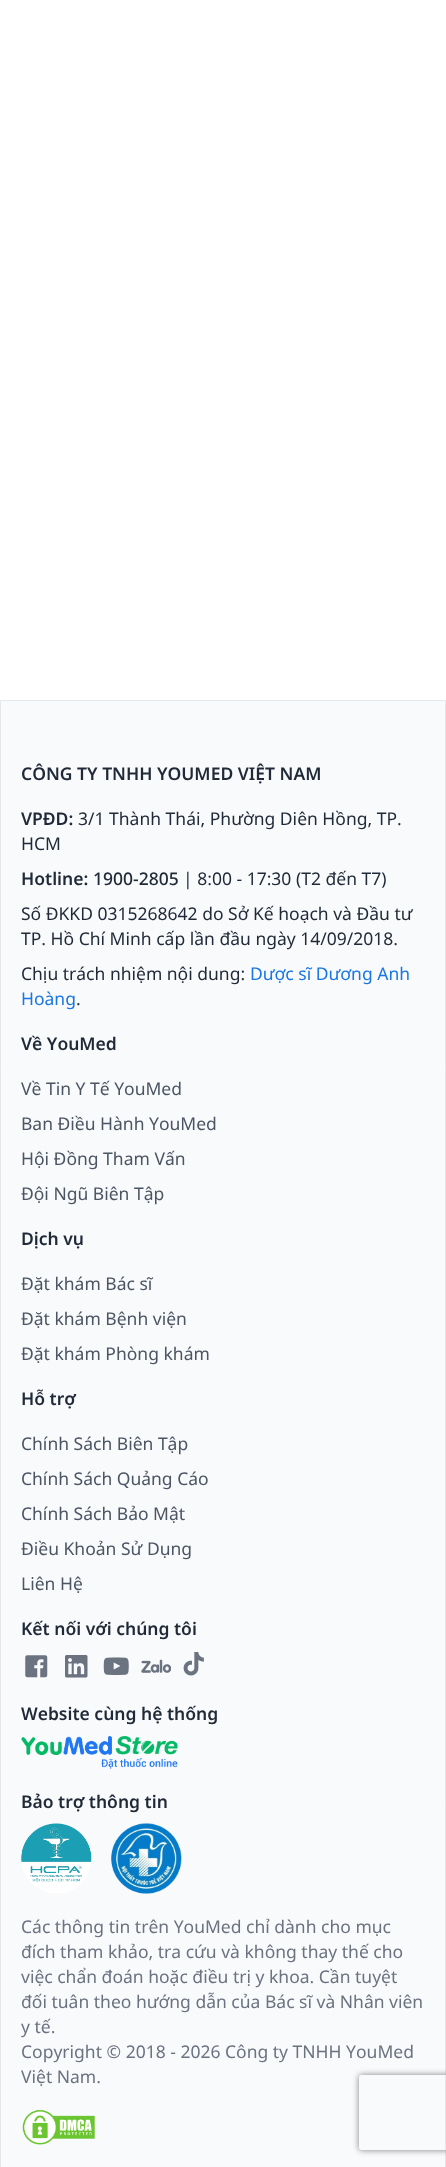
async function draw(canvas) {
  canvas.width = 446;
  canvas.height = 2167;
  const ctx = canvas.getContext('2d');
  ctx.miterLimit = 4;
  ctx.fontKerning = 'none';
  function label(s, x, y, font, color) {
    ctx.font = font;
    ctx.fillStyle = color;
    ctx.fillText(s, x, y);
  }
  function rect(x, y, w, h, color) {
    ctx.fillStyle = color;
    ctx.fillRect(x, y, w, h);
  }
  async function image(src, x, y, w, h) {
    const img = new Image();
    img.src = src;
    await img.decode();
    ctx.drawImage(img, x, y, w, h);
  }
  let path;

  rect(0, 0, 446, 2167, '#fff');
  ctx.fillStyle = '#f9fafb';
  ctx.beginPath();
  ctx.rect(0.5, 700.5, 445, 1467);
  ctx.fill();
  ctx.strokeStyle = '#e5e7eb';
  ctx.stroke();
  label('CÔNG TY TNHH YOUMED VIỆT NAM', 21, 780, '600 17.5px Noto Sans', '#1f2937');
  label('VPĐD:', 21, 825, '600 17.5px Noto Sans', '#1f2937');
  label('3/1 Thành Thái, Phường Diên Hồng, TP.', 78, 825, '17.5px Noto Sans', '#1f2937');
  label('HCM', 21, 850, '17.5px Noto Sans', '#1f2937');
  label('Hotline:', 21, 885, '600 17.5px Noto Sans', '#1f2937');
  label('1900-2805', 93, 885, '500 17.5px Noto Sans', '#1f2937');
  label('| 8:00 - 17:30 (T2 đến T7)', 183, 885, '17.5px Noto Sans', '#1f2937');
  label('Số ĐKKD 0315268642 do Sở Kế hoạch và Đầu tư', 21, 920, '17.5px Noto Sans', '#1f2937');
  label('TP. Hồ Chí Minh cấp lần đầu ngày 14/09/2018.', 21, 945, '17.5px Noto Sans', '#1f2937');
  label('Chịu trách nhiệm nội dung:', 21, 980, '17.5px Noto Sans', '#1f2937');
  label('Dược sĩ Dương Anh', 250, 980, '17.5px Noto Sans', '#1a76e3');
  label('Hoàng', 21, 1005, '17.5px Noto Sans', '#1a76e3');
  label('.', 76, 1005, '17.5px Noto Sans', '#1f2937');
  label('Về YouMed', 21, 1050, '600 17.5px Noto Sans', '#1f2937');
  label('Về Tin Y Tế YouMed', 21, 1095, '17.5px Noto Sans', '#4b5563');
  label('Ban Điều Hành YouMed', 21, 1130, '17.5px Noto Sans', '#4b5563');
  label('Hội Đồng Tham Vấn', 21, 1165, '17.5px Noto Sans', '#4b5563');
  label('Đội Ngũ Biên Tập', 21, 1200, '17.5px Noto Sans', '#4b5563');
  label('Dịch vụ', 21, 1245, '600 17.5px Noto Sans', '#1f2937');
  label('Đặt khám Bác sĩ', 21, 1290, '17.5px Noto Sans', '#4b5563');
  label('Đặt khám Bệnh viện', 21, 1325, '17.5px Noto Sans', '#4b5563');
  label('Đặt khám Phòng khám', 21, 1360, '17.5px Noto Sans', '#4b5563');
  label('Hỗ trợ', 21, 1405, '600 17.5px Noto Sans', '#1f2937');
  label('Chính Sách Biên Tập', 21, 1450, '17.5px Noto Sans', '#4b5563');
  label('Chính Sách Quảng Cáo', 21, 1485, '17.5px Noto Sans', '#4b5563');
  label('Chính Sách Bảo Mật', 21, 1520, '17.5px Noto Sans', '#4b5563');
  label('Điều Khoản Sử Dụng', 21, 1555, '17.5px Noto Sans', '#4b5563');
  label('Liên Hệ', 21, 1590, '17.5px Noto Sans', '#4b5563');
  label('Kết nối với chúng tôi', 21, 1635, '600 17.5px Noto Sans', '#1f2937');
  await image('assets/img1.png', 25, 1655, 23, 23);
  await image('assets/img2.png', 65, 1655, 23, 23);
  await image('assets/img3.png', 103, 1657, 26, 19);
  await image('assets/img4.png', 141, 1659, 30, 14);
  await image('assets/img5.png', 183, 1652, 21, 24);
  label('Website cùng hệ thống', 21, 1720, '600 17.5px Noto Sans', '#1f2937');
  await image('assets/img6.png', 21, 1736, 157, 33);
  label('Bảo trợ thông tin', 21, 1808, '600 17.5px Noto Sans', '#1f2937');
  await image('assets/img7.png', 21, 1823, 71, 70);
  await image('assets/img8.png', 111, 1823, 71, 71);
  label('Các thông tin trên YouMed chỉ dành cho mục', 21, 1933, '17.5px Noto Sans', '#6b7280');
  label('đích tham khảo, tra cứu và không thay thế cho', 21, 1958, '17.5px Noto Sans', '#6b7280');
  label('việc chẩn đoán hoặc điều trị y khoa. Cần tuyệt', 21, 1983, '17.5px Noto Sans', '#6b7280');
  label('đối tuân theo hướng dẫn của Bác sĩ và Nhân viên', 21, 2008, '17.5px Noto Sans', '#6b7280');
  label('y tế.', 21, 2033, '17.5px Noto Sans', '#6b7280');
  label('Copyright © 2018 - 2026 Công ty TNHH YouMed', 21, 2058, '17.5px Noto Sans', '#6b7280');
  label('Việt Nam.', 21, 2083, '17.5px Noto Sans', '#6b7280');
  await image('assets/img9.png', 22, 2109, 73, 36);
  ctx.save();
  path = new Path2D('M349 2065H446V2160H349ZM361.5 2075H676.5C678 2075 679 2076 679 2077.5V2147.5C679 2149 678 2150 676.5 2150H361.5C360 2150 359 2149 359 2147.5V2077.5C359 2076 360 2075 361.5 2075Z');
  ctx.clip(path, 'evenodd');
  ctx.fillStyle = '#808080';
  ctx.filter = 'blur(3px)';
  ctx.beginPath();
  ctx.roundRect(359, 2075, 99, 75, 2.5);
  ctx.fill();
  ctx.filter = 'none';
  ctx.restore();
}

draw(document.querySelector('canvas'));
